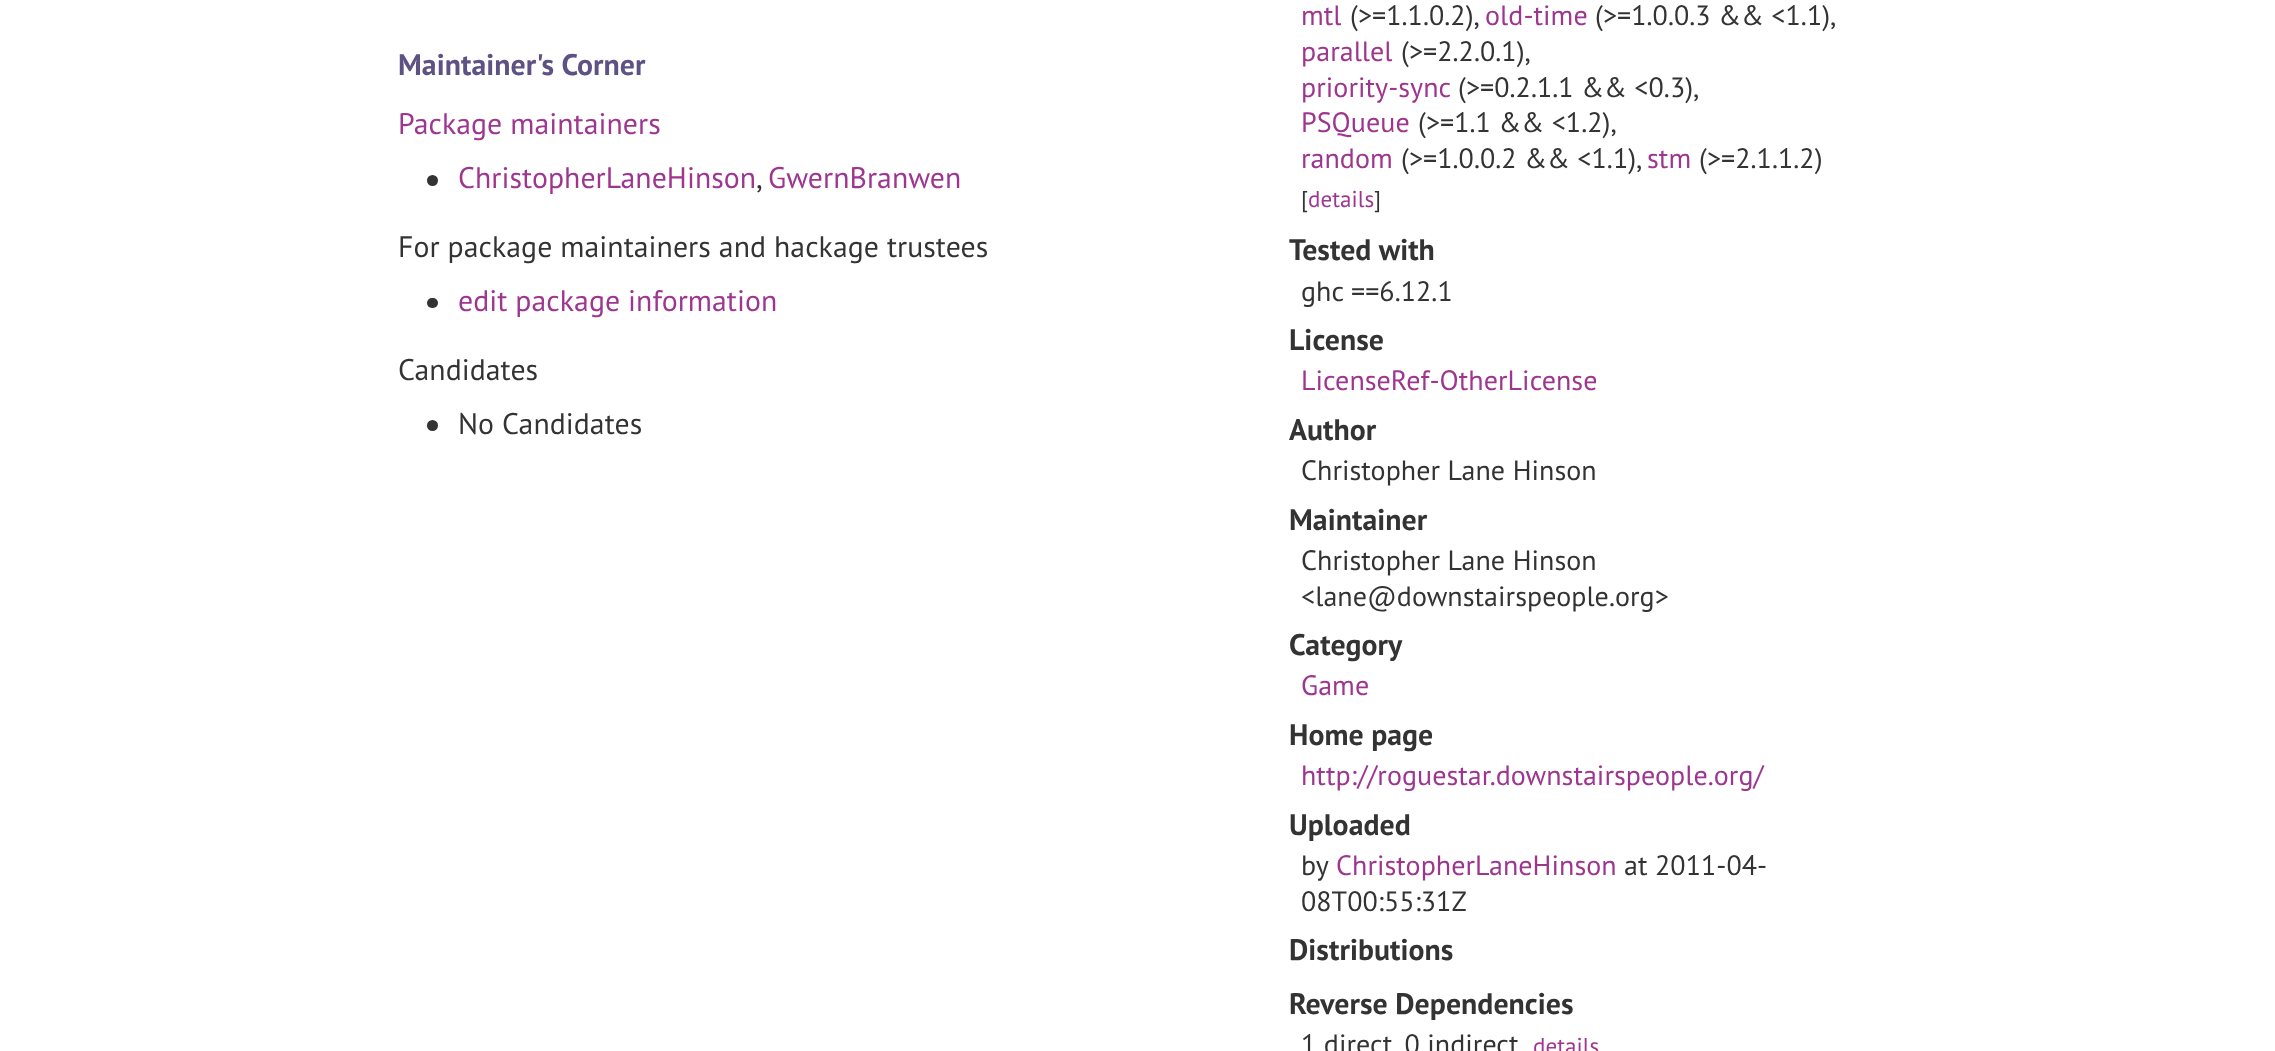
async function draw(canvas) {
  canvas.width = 2275;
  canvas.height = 1051;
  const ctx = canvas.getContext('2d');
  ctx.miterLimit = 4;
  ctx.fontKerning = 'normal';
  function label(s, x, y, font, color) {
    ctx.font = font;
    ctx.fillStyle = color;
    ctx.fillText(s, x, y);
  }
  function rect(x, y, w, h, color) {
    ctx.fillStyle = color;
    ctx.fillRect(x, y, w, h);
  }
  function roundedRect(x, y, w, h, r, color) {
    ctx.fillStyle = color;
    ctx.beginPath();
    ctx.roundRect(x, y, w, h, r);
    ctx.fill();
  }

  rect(0, 0, 2275, 1051, '#fff');
  ctx.letterSpacing = '0.05px';
  label('Maintainer\'s Corner', 398, 75, 'bold 29.75px PT Sans', '#5e5184');
  label('Package maintainers', 398, 134, '29.75px PT Sans', '#9e358f');
  ctx.fillStyle = '#333';
  ctx.beginPath();
  ctx.arc(432.5, 180.5, 5.5, 0, 2 * Math.PI);
  ctx.fill();
  label('ChristopherLaneHinson', 458, 188, '29.75px PT Sans', '#9e358f');
  label('GwernBranwen', 768, 188, '29.75px PT Sans', '#9e358f');
  label(',', 756, 188, '29.75px PT Sans', '#333');
  label('For package maintainers and hackage trustees', 398, 257, '29.75px PT Sans', '#333');
  roundedRect(427, 298, 11, 10, 5, '#333');
  label('edit package information', 458, 311, '29.75px PT Sans', '#9e358f');
  label('Candidates', 398, 380, '29.75px PT Sans', '#333');
  ctx.beginPath();
  ctx.arc(432.5, 425.5, 5.5, 0, 2 * Math.PI);
  ctx.fill();
  label('No Candidates', 458, 434, '29.75px PT Sans', '#333');
  label('mtl', 1301, 25, '28px PT Sans', '#9e358f');
  label('(>=1.1.0.2),', 1350, 25, '28px PT Sans', '#333');
  label('old-time', 1485, 25, '28px PT Sans', '#9e358f');
  label('(>=1.0.0.3 && <1.1),', 1595, 25, '28px PT Sans', '#333');
  label('parallel', 1301, 61, '28px PT Sans', '#9e358f');
  label('(>=2.2.0.1),', 1401, 61, '28px PT Sans', '#333');
  label('priority-sync', 1301, 97, '28px PT Sans', '#9e358f');
  label('(>=0.2.1.1 && <0.3),', 1458, 97, '28px PT Sans', '#333');
  label('PSQueue', 1301, 132, '28px PT Sans', '#9e358f');
  label('(>=1.1 && <1.2),', 1418, 132, '28px PT Sans', '#333');
  label('random', 1301, 168, '28px PT Sans', '#9e358f');
  label('(>=1.0.0.2 && <1.1),', 1401, 168, '28px PT Sans', '#333');
  label('stm', 1647, 168, '28px PT Sans', '#9e358f');
  label('(>=2.1.1.2)', 1699, 168, '28px PT Sans', '#333');
  label('[', 1301, 207, '23px PT Sans', '#333');
  label('details', 1308, 207, '23px PT Sans', '#9e358f');
  label(']', 1374, 207, '23px PT Sans', '#333');
  label('Tested with', 1289, 260, 'bold 29.75px PT Sans', '#333');
  label('ghc ==6.12.1', 1301, 301, '28px PT Sans', '#333');
  label('License', 1289, 350, 'bold 29.75px PT Sans', '#333');
  label('LicenseRef-OtherLicense', 1301, 390, '28px PT Sans', '#9e358f');
  label('Author', 1289, 440, 'bold 29.75px PT Sans', '#333');
  label('Christopher Lane Hinson', 1301, 480, '28px PT Sans', '#333');
  label('Maintainer', 1289, 530, 'bold 29.75px PT Sans', '#333');
  label('Christopher Lane Hinson', 1301, 570, '28px PT Sans', '#333');
  label('<lane@downstairspeople.org>', 1301, 606, '28px PT Sans', '#333');
  label('Category', 1289, 655, 'bold 29.75px PT Sans', '#333');
  label('Game', 1301, 695, '28px PT Sans', '#9e358f');
  label('Home page', 1289, 745, 'bold 29.75px PT Sans', '#333');
  label('http://roguestar.downstairspeople.org/', 1301, 785, '28px PT Sans', '#9e358f');
  label('Uploaded', 1289, 835, 'bold 29.75px PT Sans', '#333');
  label('by', 1301, 875, '28px PT Sans', '#333');
  label('ChristopherLaneHinson', 1336, 875, '28px PT Sans', '#9e358f');
  label('at 2011-04-', 1624, 875, '28px PT Sans', '#333');
  label('08T00:55:31Z', 1301, 911, '28px PT Sans', '#333');
  label('Distributions', 1289, 960, 'bold 29.75px PT Sans', '#333');
  label('Reverse Dependencies', 1289, 1014, 'bold 29.75px PT Sans', '#333');
  label('1 direct, 0 indirect', 1301, 1054, '28px PT Sans', '#333');
  label('details', 1533, 1054, '23px PT Sans', '#9e358f');
}

draw(document.querySelector('canvas'));
